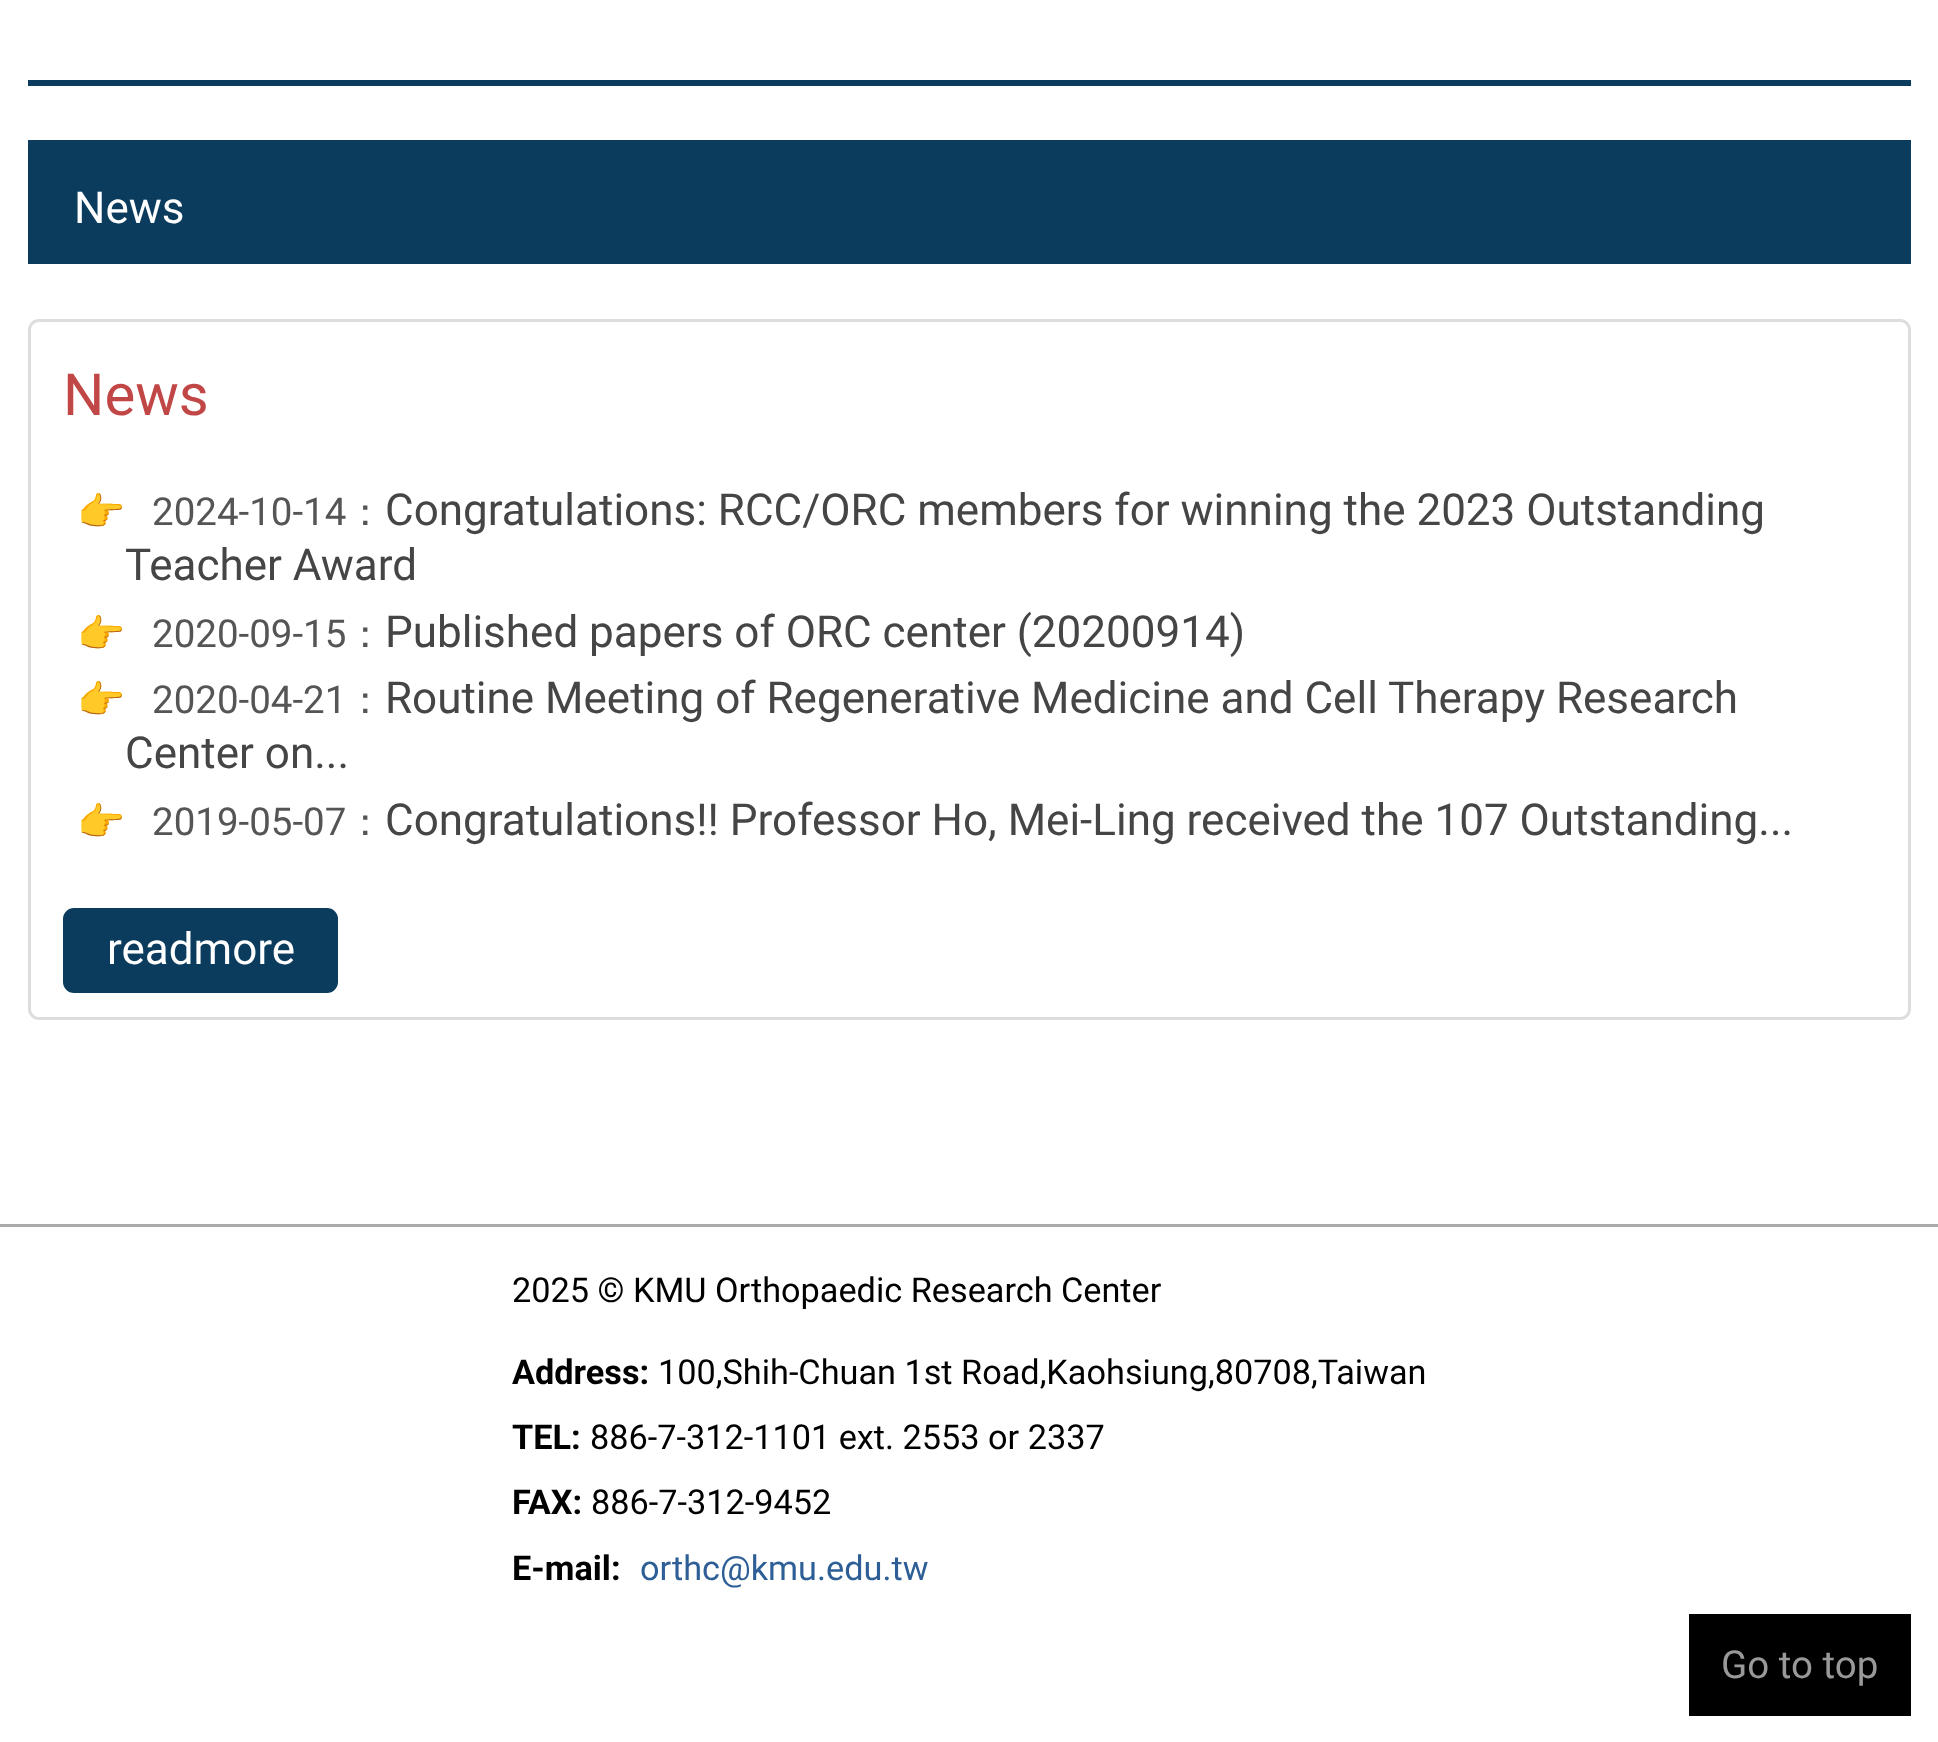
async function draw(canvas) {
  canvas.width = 1938;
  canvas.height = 1742;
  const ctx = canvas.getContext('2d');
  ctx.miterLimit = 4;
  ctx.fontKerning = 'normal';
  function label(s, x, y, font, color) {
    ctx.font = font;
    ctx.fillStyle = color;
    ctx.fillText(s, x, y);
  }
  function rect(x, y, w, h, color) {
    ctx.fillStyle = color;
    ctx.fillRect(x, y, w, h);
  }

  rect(0, 0, 1938, 1742, '#fff');
  rect(0, 1224, 1938, 3, '#aaa');
  rect(28, 80, 1883, 6, '#0b3c5d');
  rect(28, 140, 1883, 124, '#0b3c5d');
  label('News', 74, 223, '44px Roboto', '#fff');
  ctx.beginPath();
  ctx.roundRect(29.5, 320.5, 1880, 698, 9.5);
  ctx.strokeStyle = '#ddd';
  ctx.lineWidth = 3;
  ctx.stroke();
  label('News', 63, 415, '58px Roboto', '#c14746');
  label('👉', 77, 525, '38.5px Noto Color Emoji', '#555');
  label('2024-10-14', 152, 525, '38.5px Roboto', '#555');
  label('：', 346, 525, '500 38.5px WenQuanYi Zen Hei', '#555');
  label('Congratulations: RCC/ORC members for winning the 2023 Outstanding', 385, 525, '44px Roboto', '#454545');
  label('Teacher Award', 125, 580, '44px Roboto', '#454545');
  label('👉', 77, 647, '38.5px Noto Color Emoji', '#555');
  label('2020-09-15', 152, 647, '38.5px Roboto', '#555');
  label('：', 346, 647, '500 38.5px WenQuanYi Zen Hei', '#555');
  label('Published papers of ORC center (20200914)', 385, 647, '44px Roboto', '#454545');
  label('👉', 77, 713, '38.5px Noto Color Emoji', '#555');
  label('2020-04-21', 152, 713, '38.5px Roboto', '#555');
  label('：', 346, 713, '500 38.5px WenQuanYi Zen Hei', '#555');
  label('Routine Meeting of Regenerative Medicine and Cell Therapy Research', 385, 713, '44px Roboto', '#454545');
  label('Center on...', 125, 768, '44px Roboto', '#454545');
  label('👉', 77, 835, '38.5px Noto Color Emoji', '#555');
  label('2019-05-07', 152, 835, '38.5px Roboto', '#555');
  label('：', 346, 835, '500 38.5px WenQuanYi Zen Hei', '#555');
  label('Congratulations!! Professor Ho, Mei-Ling received the 107 Outstanding...', 385, 835, '44px Roboto', '#454545');
  ctx.fillStyle = '#0b3c5d';
  ctx.beginPath();
  ctx.roundRect(64.5, 909.5, 272, 82, 9.5);
  ctx.fill();
  ctx.strokeStyle = '#0b3c5d';
  ctx.stroke();
  label('readmore', 107, 964, '44px Roboto', '#fff');
  label('2025 © KMU Orthopaedic Research Center', 512, 1302, '34.25px Roboto', '#000');
  label('Address:', 512, 1384, 'bold 34.25px Roboto', '#000');
  label('100,Shih-Chuan 1st Road,Kaohsiung,80708,Taiwan', 658, 1384, '34.25px Roboto', '#000');
  label('TEL:', 512, 1449, 'bold 34.25px Roboto', '#000');
  label('886-7-312-1101 ext. 2553 or 2337', 590, 1449, '34.25px Roboto', '#000');
  label('FAX:', 512, 1514, 'bold 34.25px Roboto', '#000');
  label('886-7-312-9452', 591, 1514, '34.25px Roboto', '#000');
  label('E-mail:', 512, 1580, 'bold 34.25px Roboto', '#000');
  label('orthc@kmu.edu.tw', 640, 1580, '34.25px Roboto', '#2d5e96');
  rect(1689, 1614, 222, 102, '#000');
  label('Go to top', 1721, 1678, '38.5px Roboto', '#999');
}

draw(document.querySelector('canvas'));
